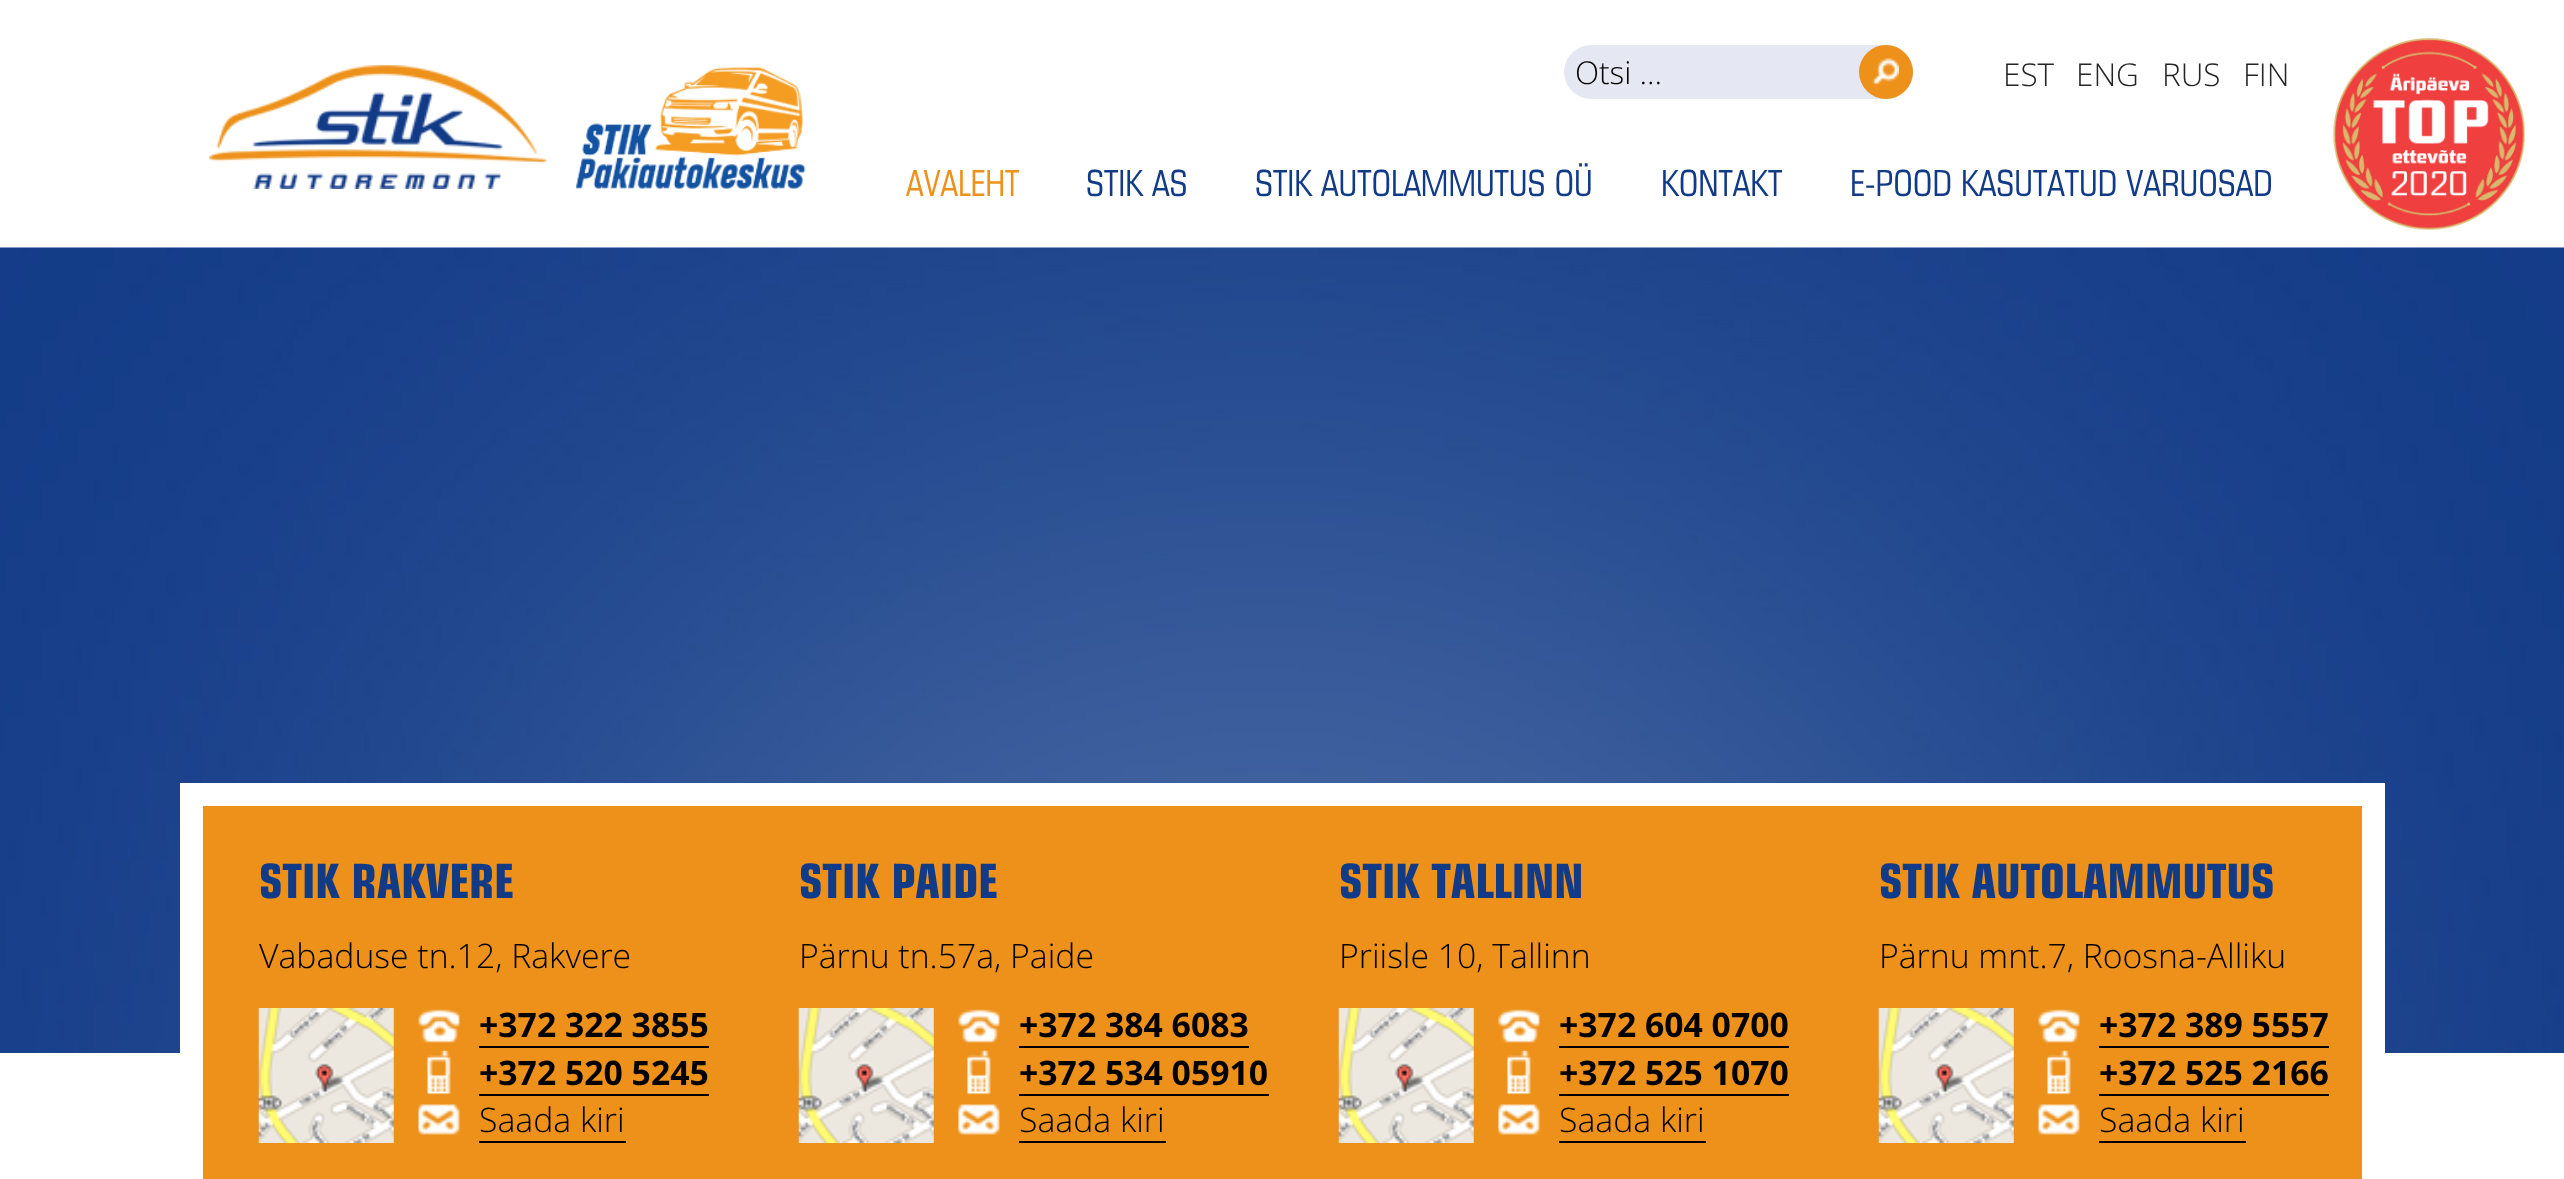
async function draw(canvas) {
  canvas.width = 2564;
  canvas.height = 1179;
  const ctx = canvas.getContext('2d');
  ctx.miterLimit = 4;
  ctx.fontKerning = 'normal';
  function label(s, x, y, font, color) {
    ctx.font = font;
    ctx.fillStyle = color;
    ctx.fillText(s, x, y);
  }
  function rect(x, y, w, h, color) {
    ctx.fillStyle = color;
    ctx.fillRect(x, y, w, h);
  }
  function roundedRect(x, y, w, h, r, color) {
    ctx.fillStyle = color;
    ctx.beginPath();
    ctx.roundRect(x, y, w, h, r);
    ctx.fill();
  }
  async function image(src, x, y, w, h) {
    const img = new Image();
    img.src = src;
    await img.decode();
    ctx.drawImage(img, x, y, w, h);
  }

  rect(0, 0, 2564, 1179, '#fff');
  await image('assets/img1.png', 209, 65, 338, 124);
  await image('assets/img2.png', 575, 67, 231, 122);
  roundedRect(1564, 45, 349, 54, 27, '#e5e8f2');
  label('Otsi ...', 1575, 84, '300 31.5px Open Sans', '#000');
  ctx.fillStyle = '#ed911a';
  ctx.beginPath();
  ctx.arc(1886, 72, 27, 0, 2 * Math.PI);
  ctx.fill();
  await image('assets/img3.png', 1872, 58, 27, 28);
  label('EST', 2003, 86, '300 31.5px Open Sans', '#262425');
  label('ENG', 2076, 86, '300 31.5px Open Sans', '#262425');
  label('RUS', 2162, 86, '300 31.5px Open Sans', '#262425');
  label('FIN', 2243, 86, '300 31.5px Open Sans', '#262425');
  await image('assets/img4.png', 2333, 38, 192, 192);
  label('AVALEHT', 906, 196, '36px "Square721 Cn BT"', '#ed911a');
  label('STIK AS', 1086, 196, '36px "Square721 Cn BT"', '#123b87');
  label('STIK AUTOLAMMUTUS OÜ', 1255, 196, '36px "Square721 Cn BT"', '#123b87');
  label('KONTAKT', 1661, 196, '36px "Square721 Cn BT"', '#123b87');
  label('E-POOD KASUTATUD VARUOSAD', 1850, 196, '36px "Square721 Cn BT"', '#123b87');
  await image('assets/img5.png', 0, 247, 2564, 806);
  ctx.fillStyle = '#ed911a';
  ctx.beginPath();
  ctx.rect(191.5, 794.5, 2182, 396);
  ctx.fill();
  ctx.strokeStyle = '#fff';
  ctx.lineWidth = 23;
  ctx.stroke();
  label('STIK RAKVERE', 259, 898, 'bold 47.25px "Square721 Cn BT"', '#123b87');
  label('Vabaduse tn.12, Rakvere', 259, 968, '300 33.75px Open Sans', '#000');
  await image('assets/img6.png', 258, 1008, 136, 135);
  await image('assets/img7.png', 418, 1009, 42, 34);
  label('+372 322 3855', 479, 1037, 'bold 33.75px Open Sans', '#000');
  rect(479, 1046, 230, 2, '#000');
  await image('assets/img8.png', 427, 1050, 24, 45);
  label('+372 520 5245', 479, 1085, 'bold 33.75px Open Sans', '#000');
  rect(479, 1094, 230, 2, '#000');
  await image('assets/img9.png', 418, 1104, 42, 31);
  label('Saada kiri', 479, 1132, '300 33.75px Open Sans', '#000');
  rect(479, 1141, 147, 2, '#000');
  label('STIK PAIDE', 799, 898, 'bold 47.25px "Square721 Cn BT"', '#123b87');
  label('Pärnu tn.57a, Paide', 799, 968, '300 33.75px Open Sans', '#000');
  await image('assets/img10.png', 798, 1008, 136, 135);
  await image('assets/img11.png', 958, 1009, 42, 34);
  label('+372 384 6083', 1019, 1037, 'bold 33.75px Open Sans', '#000');
  rect(1019, 1046, 230, 2, '#000');
  await image('assets/img12.png', 967, 1050, 24, 45);
  label('+372 534 05910', 1019, 1085, 'bold 33.75px Open Sans', '#000');
  rect(1019, 1094, 250, 2, '#000');
  await image('assets/img13.png', 958, 1104, 42, 31);
  label('Saada kiri', 1019, 1132, '300 33.75px Open Sans', '#000');
  rect(1019, 1141, 147, 2, '#000');
  label('STIK TALLINN', 1339, 898, 'bold 47.25px "Square721 Cn BT"', '#123b87');
  label('Priisle 10, Tallinn', 1339, 968, '300 33.75px Open Sans', '#000');
  await image('assets/img14.png', 1338, 1008, 136, 135);
  await image('assets/img15.png', 1498, 1009, 42, 34);
  label('+372 604 0700', 1559, 1037, 'bold 33.75px Open Sans', '#000');
  rect(1559, 1046, 230, 2, '#000');
  await image('assets/img16.png', 1507, 1050, 24, 45);
  label('+372 525 1070', 1559, 1085, 'bold 33.75px Open Sans', '#000');
  rect(1559, 1094, 230, 2, '#000');
  await image('assets/img17.png', 1498, 1104, 42, 31);
  label('Saada kiri', 1559, 1132, '300 33.75px Open Sans', '#000');
  rect(1559, 1141, 147, 2, '#000');
  label('STIK AUTOLAMMUTUS', 1879, 898, 'bold 47.25px "Square721 Cn BT"', '#123b87');
  label('Pärnu mnt.7, Roosna-Alliku', 1879, 968, '300 33.75px Open Sans', '#000');
  await image('assets/img10.png', 1878, 1008, 136, 135);
  await image('assets/img18.png', 2038, 1009, 42, 34);
  label('+372 389 5557', 2099, 1037, 'bold 33.75px Open Sans', '#000');
  rect(2099, 1046, 230, 2, '#000');
  await image('assets/img19.png', 2047, 1050, 24, 45);
  label('+372 525 2166', 2099, 1085, 'bold 33.75px Open Sans', '#000');
  rect(2099, 1094, 230, 2, '#000');
  await image('assets/img20.png', 2038, 1104, 42, 31);
  label('Saada kiri', 2099, 1132, '300 33.75px Open Sans', '#000');
  rect(2099, 1141, 147, 2, '#000');
}

draw(document.querySelector('canvas'));
